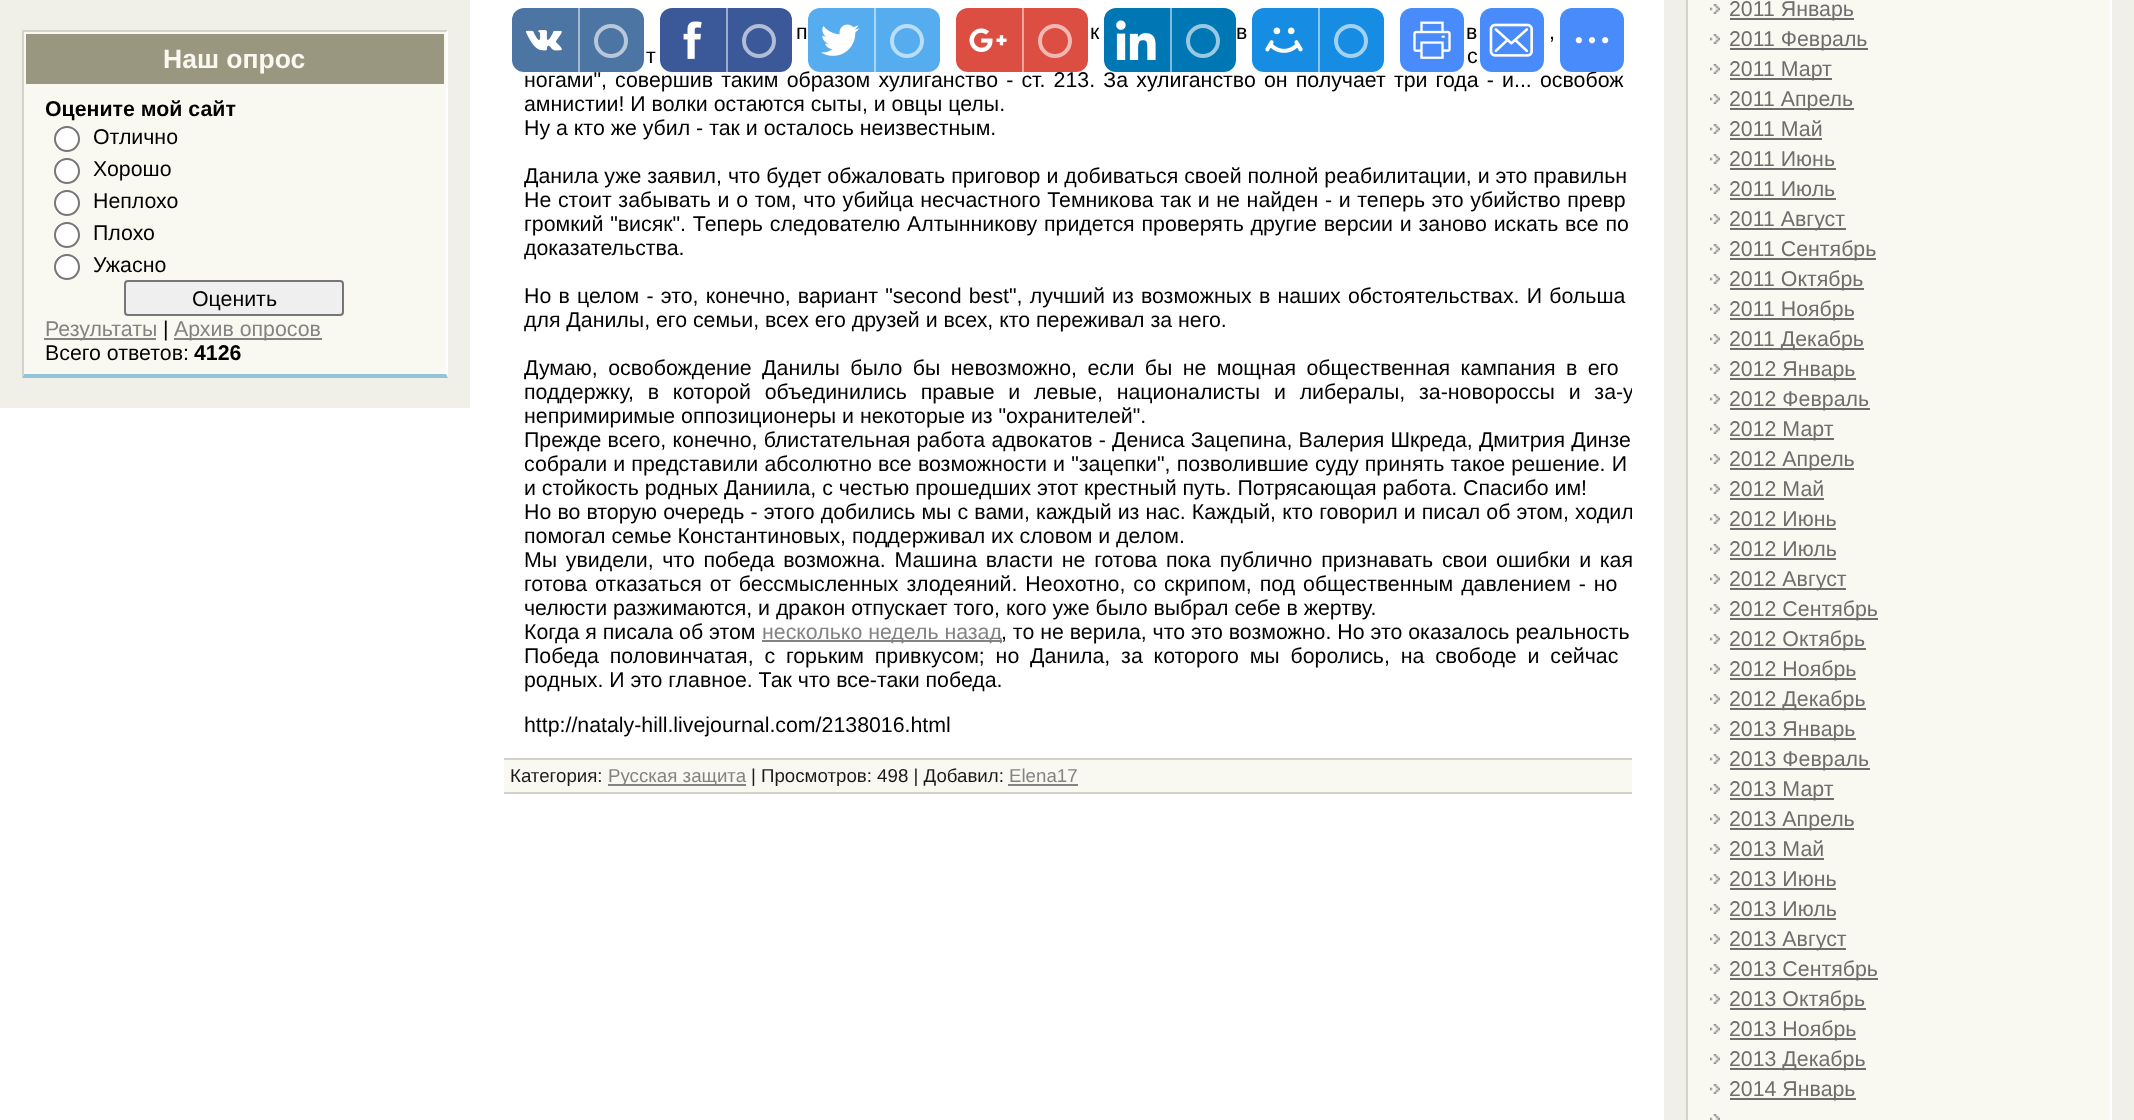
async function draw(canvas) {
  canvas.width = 2134;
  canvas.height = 1120;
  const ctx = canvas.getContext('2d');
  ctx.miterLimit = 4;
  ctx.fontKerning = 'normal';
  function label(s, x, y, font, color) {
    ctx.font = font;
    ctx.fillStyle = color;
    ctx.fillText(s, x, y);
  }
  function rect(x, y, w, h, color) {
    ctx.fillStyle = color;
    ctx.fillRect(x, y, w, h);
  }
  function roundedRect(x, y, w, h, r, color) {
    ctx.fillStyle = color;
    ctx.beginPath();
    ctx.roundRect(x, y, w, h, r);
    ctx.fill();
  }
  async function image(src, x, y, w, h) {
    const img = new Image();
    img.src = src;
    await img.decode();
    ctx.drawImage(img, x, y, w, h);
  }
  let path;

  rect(0, 0, 2134, 1120, '#fff');
  ctx.wordSpacing = '2.25px';
  label('ногами", совершив таким образом хулиганство - ст. 213. За хулиганство он получает три года - и... освобож', 524, 87, '21.33px Liberation Sans', '#000');
  roundedRect(512, 8, 132, 64, 12, '#4d75a3');
  await image('assets/img1.png', 525, 30, 37, 21);
  rect(578, 8, 2, 64, '#a6bad1');
  ctx.beginPath();
  ctx.arc(611, 41, 15, 0, 2 * Math.PI);
  ctx.strokeStyle = '#b8c8da';
  ctx.lineWidth = 4;
  ctx.stroke();
  roundedRect(660, 8, 132, 64, 12, '#3b5998');
  await image('assets/img2.png', 683, 21, 19, 38);
  rect(726, 8, 2, 64, '#9daccc');
  ctx.beginPath();
  ctx.arc(759, 41, 15, 0, 2 * Math.PI);
  ctx.strokeStyle = '#b1bdd6';
  ctx.stroke();
  roundedRect(808, 8, 132, 64, 12, '#55acee');
  await image('assets/img3.png', 821, 24, 39, 32);
  rect(874, 8, 2, 64, '#aad6f7');
  ctx.beginPath();
  ctx.arc(907, 41, 15, 0, 2 * Math.PI);
  ctx.strokeStyle = '#bbdef8';
  ctx.stroke();
  roundedRect(956, 8, 132, 64, 12, '#dc4e41');
  await image('assets/img4.png', 969, 28, 38, 24);
  rect(1022, 8, 2, 64, '#eea7a0');
  ctx.beginPath();
  ctx.arc(1055, 41, 15, 0, 2 * Math.PI);
  ctx.strokeStyle = '#f1b8b3';
  ctx.stroke();
  roundedRect(1104, 8, 132, 64, 12, '#0077b5');
  await image('assets/img5.png', 1116, 20, 40, 40);
  rect(1170, 8, 2, 64, '#80bbda');
  ctx.beginPath();
  ctx.arc(1203, 41, 15, 0, 2 * Math.PI);
  ctx.strokeStyle = '#99c9e1';
  ctx.stroke();
  roundedRect(1252, 8, 132, 64, 12, '#168de2');
  await image('assets/img6.png', 1265, 27, 38, 26);
  rect(1318, 8, 2, 64, '#8bc6f1');
  ctx.beginPath();
  ctx.arc(1351, 41, 15, 0, 2 * Math.PI);
  ctx.strokeStyle = '#a2d1f3';
  ctx.stroke();
  roundedRect(1400, 8, 64, 64, 12, '#498bfa');
  await image('assets/img7.png', 1413, 21, 38, 38);
  roundedRect(1480, 8, 64, 64, 12, '#498bfa');
  await image('assets/img8.png', 1489, 23, 44, 34);
  roundedRect(1560, 8, 64, 64, 12, '#498bfa');
  await image('assets/img9.png', 1575, 37, 34, 7);
  rect(1664, 0, 470, 1120, '#f1f0e8');
  rect(1688, 0, 422, 1120, '#faf9f1');
  ctx.fillStyle = '#fff';
  path = new Path2D('M2112-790V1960L2110 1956V-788Z');
  ctx.fill(path);
  ctx.fillStyle = '#d3d2cb';
  path = new Path2D('M1686 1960V-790L1688-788V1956Z');
  ctx.fill(path);
  await image('assets/img10.png', 1710, 4, 10, 10);
  rect(1730, 18, 124, 2, '#6e6e6e');
  ctx.wordSpacing = '0px';
  label('2011 Январь', 1729, 16, '21.33px Liberation Sans', '#6e6e6e');
  await image('assets/img10.png', 1710, 34, 10, 10);
  rect(1730, 48, 138, 2, '#6e6e6e');
  label('2011 Февраль', 1729, 46, '21.33px Liberation Sans', '#6e6e6e');
  await image('assets/img10.png', 1710, 64, 10, 10);
  rect(1730, 78, 102, 2, '#6e6e6e');
  label('2011 Март', 1729, 76, '21.33px Liberation Sans', '#6e6e6e');
  await image('assets/img10.png', 1710, 94, 10, 10);
  rect(1730, 108, 124, 2, '#6e6e6e');
  label('2011 Апрель', 1729, 106, '21.33px Liberation Sans', '#6e6e6e');
  await image('assets/img10.png', 1710, 124, 10, 10);
  label('2011 Май', 1729, 136, '21.33px Liberation Sans', '#6e6e6e');
  rect(1730, 138, 92, 2, '#6e6e6e');
  await image('assets/img10.png', 1710, 154, 10, 10);
  label('2011 Июнь', 1729, 166, '21.33px Liberation Sans', '#6e6e6e');
  rect(1730, 168, 106, 2, '#6e6e6e');
  await image('assets/img10.png', 1710, 184, 10, 10);
  label('2011 Июль', 1729, 196, '21.33px Liberation Sans', '#6e6e6e');
  rect(1730, 198, 106, 2, '#6e6e6e');
  await image('assets/img10.png', 1710, 214, 10, 10);
  rect(1730, 228, 116, 2, '#6e6e6e');
  label('2011 Август', 1729, 226, '21.33px Liberation Sans', '#6e6e6e');
  await image('assets/img10.png', 1710, 244, 10, 10);
  rect(1730, 258, 146, 2, '#6e6e6e');
  label('2011 Сентябрь', 1729, 256, '21.33px Liberation Sans', '#6e6e6e');
  await image('assets/img10.png', 1710, 274, 10, 10);
  rect(1730, 288, 134, 2, '#6e6e6e');
  label('2011 Октябрь', 1729, 286, '21.33px Liberation Sans', '#6e6e6e');
  await image('assets/img10.png', 1710, 304, 10, 10);
  rect(1730, 318, 124, 2, '#6e6e6e');
  label('2011 Ноябрь', 1729, 316, '21.33px Liberation Sans', '#6e6e6e');
  await image('assets/img10.png', 1710, 334, 10, 10);
  rect(1730, 348, 134, 2, '#6e6e6e');
  label('2011 Декабрь', 1729, 346, '21.33px Liberation Sans', '#6e6e6e');
  await image('assets/img10.png', 1710, 364, 10, 10);
  rect(1730, 378, 126, 2, '#6e6e6e');
  label('2012 Январь', 1729, 376, '21.33px Liberation Sans', '#6e6e6e');
  await image('assets/img10.png', 1710, 394, 10, 10);
  rect(1730, 408, 140, 2, '#6e6e6e');
  label('2012 Февраль', 1729, 406, '21.33px Liberation Sans', '#6e6e6e');
  await image('assets/img10.png', 1710, 424, 10, 10);
  rect(1730, 438, 104, 2, '#6e6e6e');
  label('2012 Март', 1729, 436, '21.33px Liberation Sans', '#6e6e6e');
  await image('assets/img10.png', 1710, 454, 10, 10);
  rect(1730, 468, 124, 2, '#6e6e6e');
  label('2012 Апрель', 1729, 466, '21.33px Liberation Sans', '#6e6e6e');
  await image('assets/img10.png', 1710, 484, 10, 10);
  label('2012 Май', 1729, 496, '21.33px Liberation Sans', '#6e6e6e');
  rect(1730, 498, 94, 2, '#6e6e6e');
  await image('assets/img10.png', 1710, 514, 10, 10);
  label('2012 Июнь', 1729, 526, '21.33px Liberation Sans', '#6e6e6e');
  rect(1730, 528, 106, 2, '#6e6e6e');
  await image('assets/img10.png', 1710, 544, 10, 10);
  label('2012 Июль', 1729, 556, '21.33px Liberation Sans', '#6e6e6e');
  rect(1730, 558, 106, 2, '#6e6e6e');
  await image('assets/img10.png', 1710, 574, 10, 10);
  rect(1730, 588, 116, 2, '#6e6e6e');
  label('2012 Август', 1729, 586, '21.33px Liberation Sans', '#6e6e6e');
  await image('assets/img10.png', 1710, 604, 10, 10);
  rect(1730, 618, 148, 2, '#6e6e6e');
  label('2012 Сентябрь', 1729, 616, '21.33px Liberation Sans', '#6e6e6e');
  await image('assets/img10.png', 1710, 634, 10, 10);
  rect(1730, 648, 136, 2, '#6e6e6e');
  label('2012 Октябрь', 1729, 646, '21.33px Liberation Sans', '#6e6e6e');
  await image('assets/img10.png', 1710, 664, 10, 10);
  rect(1730, 678, 126, 2, '#6e6e6e');
  label('2012 Ноябрь', 1729, 676, '21.33px Liberation Sans', '#6e6e6e');
  await image('assets/img10.png', 1710, 694, 10, 10);
  rect(1730, 708, 136, 2, '#6e6e6e');
  label('2012 Декабрь', 1729, 706, '21.33px Liberation Sans', '#6e6e6e');
  await image('assets/img10.png', 1710, 724, 10, 10);
  rect(1730, 738, 126, 2, '#6e6e6e');
  label('2013 Январь', 1729, 736, '21.33px Liberation Sans', '#6e6e6e');
  await image('assets/img10.png', 1710, 754, 10, 10);
  rect(1730, 768, 140, 2, '#6e6e6e');
  label('2013 Февраль', 1729, 766, '21.33px Liberation Sans', '#6e6e6e');
  await image('assets/img10.png', 1710, 784, 10, 10);
  rect(1730, 798, 104, 2, '#6e6e6e');
  label('2013 Март', 1729, 796, '21.33px Liberation Sans', '#6e6e6e');
  await image('assets/img10.png', 1710, 814, 10, 10);
  rect(1730, 828, 124, 2, '#6e6e6e');
  label('2013 Апрель', 1729, 826, '21.33px Liberation Sans', '#6e6e6e');
  await image('assets/img10.png', 1710, 844, 10, 10);
  label('2013 Май', 1729, 856, '21.33px Liberation Sans', '#6e6e6e');
  rect(1730, 858, 94, 2, '#6e6e6e');
  await image('assets/img10.png', 1710, 874, 10, 10);
  label('2013 Июнь', 1729, 886, '21.33px Liberation Sans', '#6e6e6e');
  rect(1730, 888, 106, 2, '#6e6e6e');
  await image('assets/img10.png', 1710, 904, 10, 10);
  label('2013 Июль', 1729, 916, '21.33px Liberation Sans', '#6e6e6e');
  rect(1730, 918, 106, 2, '#6e6e6e');
  await image('assets/img10.png', 1710, 934, 10, 10);
  rect(1730, 948, 116, 2, '#6e6e6e');
  label('2013 Август', 1729, 946, '21.33px Liberation Sans', '#6e6e6e');
  await image('assets/img10.png', 1710, 964, 10, 10);
  rect(1730, 978, 148, 2, '#6e6e6e');
  label('2013 Сентябрь', 1729, 976, '21.33px Liberation Sans', '#6e6e6e');
  await image('assets/img10.png', 1710, 994, 10, 10);
  rect(1730, 1008, 136, 2, '#6e6e6e');
  label('2013 Октябрь', 1729, 1006, '21.33px Liberation Sans', '#6e6e6e');
  await image('assets/img10.png', 1710, 1024, 10, 10);
  rect(1730, 1038, 126, 2, '#6e6e6e');
  label('2013 Ноябрь', 1729, 1036, '21.33px Liberation Sans', '#6e6e6e');
  await image('assets/img10.png', 1710, 1054, 10, 10);
  rect(1730, 1068, 136, 2, '#6e6e6e');
  label('2013 Декабрь', 1729, 1066, '21.33px Liberation Sans', '#6e6e6e');
  await image('assets/img10.png', 1710, 1084, 10, 10);
  rect(1730, 1098, 126, 2, '#6e6e6e');
  label('2014 Январь', 1729, 1096, '21.33px Liberation Sans', '#6e6e6e');
  await image('assets/img11.png', 1710, 1114, 10, 6);
  rect(0, 0, 470, 408, '#f1f0e8');
  rect(24, 86, 422, 288, '#faf9f1');
  rect(22, 30, 426, 2, '#d3d2cb');
  ctx.fillStyle = '#fff';
  path = new Path2D('M448 30V378L446 374V32Z');
  ctx.fill(path);
  ctx.fillStyle = '#93c3d7';
  path = new Path2D('M448 378H22L24 374H446Z');
  ctx.fill(path);
  ctx.fillStyle = '#d3d2cb';
  path = new Path2D('M22 378V30L24 32V374Z');
  ctx.fill(path);
  ctx.fillStyle = '#99977f';
  ctx.beginPath();
  ctx.rect(25, 33, 420, 52);
  ctx.fill();
  ctx.strokeStyle = '#faf9f1';
  ctx.lineWidth = 2;
  ctx.stroke();
  label('Наш опрос', 163, 68, 'bold 26.5px Liberation Sans', '#faf9f1');
  label('Оцените мой сайт', 45, 116, 'bold 21.33px Liberation Sans', '#000');
  ctx.fillStyle = '#fff';
  ctx.beginPath();
  ctx.arc(67, 139, 12, 0, 2 * Math.PI);
  ctx.fill();
  ctx.strokeStyle = '#767676';
  ctx.stroke();
  label('Отлично', 93, 144, '21.33px Liberation Sans', '#000');
  ctx.fillStyle = '#fff';
  ctx.beginPath();
  ctx.arc(67, 171, 12, 0, 2 * Math.PI);
  ctx.fill();
  ctx.stroke();
  label('Хорошо', 93, 176, '21.33px Liberation Sans', '#000');
  ctx.fillStyle = '#fff';
  ctx.beginPath();
  ctx.arc(67, 203, 12, 0, 2 * Math.PI);
  ctx.fill();
  ctx.stroke();
  label('Неплохо', 93, 208, '21.33px Liberation Sans', '#000');
  ctx.fillStyle = '#fff';
  ctx.beginPath();
  ctx.arc(67, 235, 12, 0, 2 * Math.PI);
  ctx.fill();
  ctx.stroke();
  label('Плохо', 93, 240, '21.33px Liberation Sans', '#000');
  ctx.fillStyle = '#fff';
  ctx.beginPath();
  ctx.arc(67, 267, 12, 0, 2 * Math.PI);
  ctx.fill();
  ctx.stroke();
  label('Ужасно', 93, 272, '21.33px Liberation Sans', '#000');
  ctx.fillStyle = '#efefef';
  ctx.beginPath();
  ctx.roundRect(125, 281, 218, 34, 3);
  ctx.fill();
  ctx.stroke();
  label('Оценить', 192, 306, '21.33px Liberation Sans', '#000');
  rect(44, 338, 112, 2, '#838383');
  label('Результаты', 45, 336, '21.33px Liberation Sans', '#838383');
  label('|', 163, 336, '21.33px Liberation Sans', '#000');
  rect(174, 338, 148, 2, '#838383');
  label('Архив опросов', 174, 336, '21.33px Liberation Sans', '#838383');
  label('Всего ответов:', 45, 360, '21.33px Liberation Sans', '#000');
  label('4126', 194, 360, 'bold 21.33px Liberation Sans', '#000');
  label('п', 796, 39, '21.33px Liberation Sans', '#000');
  label('к', 1090, 39, '21.33px Liberation Sans', '#000');
  label('в', 1236, 39, '21.33px Liberation Sans', '#000');
  label('в', 1466, 39, '21.33px Liberation Sans', '#000');
  label(',', 1549, 39, '21.33px Liberation Sans', '#000');
  ctx.wordSpacing = '4px';
  label('т', 646, 63, '21.33px Liberation Sans', '#000');
  label('с', 1467, 63, '21.33px Liberation Sans', '#000');
  ctx.wordSpacing = '0px';
  label('амнистии! И волки остаются сыты, и овцы целы.', 524, 111, '21.33px Liberation Sans', '#000');
  label('Ну а кто же убил - так и осталось неизвестным.', 524, 135, '21.33px Liberation Sans', '#000');
  label('Данила уже заявил, что будет обжаловать приговор и добиваться своей полной реабилитации, и это правильн', 524, 183, '21.33px Liberation Sans', '#000');
  ctx.wordSpacing = '0.75px';
  label('Не стоит забывать и о том, что убийца несчастного Темникова так и не найден - и теперь это убийство превр', 524, 207, '21.33px Liberation Sans', '#000');
  ctx.wordSpacing = '0.9px';
  label('громкий "висяк". Теперь следователю Алтынникову придется проверять другие версии и заново искать все по', 524, 231, '21.33px Liberation Sans', '#000');
  ctx.wordSpacing = '0px';
  label('доказательства.', 524, 255, '21.33px Liberation Sans', '#000');
  ctx.wordSpacing = '1.25px';
  label('Но в целом - это, конечно, вариант "second best", лучший из возможных в наших обстоятельствах. И больша', 524, 303, '21.33px Liberation Sans', '#000');
  ctx.wordSpacing = '0px';
  label('для Данилы, его семьи, всех его друзей и всех, кто переживал за него.', 524, 327, '21.33px Liberation Sans', '#000');
  ctx.wordSpacing = '4.5px';
  label('Думаю, освобождение Данилы было бы невозможно, если бы не мощная общественная кампания в его', 524, 375, '21.33px Liberation Sans', '#000');
  ctx.save();
  ctx.beginPath();
  ctx.rect(502, 0, 1130, 796);
  ctx.clip();
  ctx.wordSpacing = '7.9px';
  label('поддержку, в которой объединились правые и левые, националисты и либералы, за-новороссы и за-у', 524, 399, '21.33px Liberation Sans', '#000');
  ctx.restore();
  ctx.wordSpacing = '0px';
  label('непримиримые оппозиционеры и некоторые из "охранителей".', 524, 423, '21.33px Liberation Sans', '#000');
  ctx.wordSpacing = '0.25px';
  label('Прежде всего, конечно, блистательная работа адвокатов - Дениса Зацепина, Валерия Шкреда, Дмитрия Динзе', 524, 447, '21.33px Liberation Sans', '#000');
  label('собрали и представили абсолютно все возможности и "зацепки", позволившие суду принять такое решение. И', 524, 471, '21.33px Liberation Sans', '#000');
  ctx.wordSpacing = '0px';
  label('и стойкость родных Даниила, с честью прошедших этот крестный путь. Потрясающая работа. Спасибо им!', 524, 495, '21.33px Liberation Sans', '#000');
  ctx.save();
  ctx.beginPath();
  ctx.rect(502, 0, 1130, 796);
  ctx.clip();
  ctx.wordSpacing = '0.2px';
  label('Но во вторую очередь - этого добились мы с вами, каждый из нас. Каждый, кто говорил и писал об этом, ходил', 524, 519, '21.33px Liberation Sans', '#000');
  ctx.restore();
  label('помогал семье Константиновых, поддерживал их словом и делом.', 524, 543, '21.33px Liberation Sans', '#000');
  ctx.wordSpacing = '2.75px';
  label('Мы увидели, что победа возможна. Машина власти не готова пока публично признавать свои ошибки и кая', 524, 567, '21.33px Liberation Sans', '#000');
  ctx.wordSpacing = '2px';
  label('готова отказаться от бессмысленных злодеяний. Неохотно, со скрипом, под общественным давлением - но', 524, 591, '21.33px Liberation Sans', '#000');
  ctx.wordSpacing = '0px';
  label('челюсти разжимаются, и дракон отпускает того, кого уже было выбрал себе в жертву.', 524, 615, '21.33px Liberation Sans', '#000');
  label('Когда я писала об этом', 524, 639, '21.33px Liberation Sans', '#000');
  rect(762, 640, 240, 2, '#838383');
  label('несколько недель назад', 762, 639, '21.33px Liberation Sans', '#838383');
  label(', то не верила, что это возможно. Но это оказалось реальность', 1001, 639, '21.33px Liberation Sans', '#000');
  ctx.wordSpacing = '4.9px';
  label('Победа половинчатая, с горьким привкусом; но Данила, за которого мы боролись, на свободе и сейчас', 524, 663, '21.33px Liberation Sans', '#000');
  ctx.wordSpacing = '0px';
  label('родных. И это главное. Так что все-таки победа.', 524, 687, '21.33px Liberation Sans', '#000');
  label('http://nataly-hill.livejournal.com/2138016.html', 524, 732, '21.33px Liberation Sans', '#000');
  rect(504, 760, 1128, 32, '#faf9f1');
  rect(504, 758, 1128, 2, '#d3d2cb');
  rect(504, 792, 1128, 2, '#d3d2cb');
  label('Категория:', 510, 782, '18.7px Liberation Sans', '#1a1a1a');
  rect(608, 784, 138, 2, '#838383');
  label('Русская защита', 608, 782, '18.7px Liberation Sans', '#838383');
  label('| Просмотров: 498 | Добавил:', 751, 782, '18.7px Liberation Sans', '#1a1a1a');
  label('Elena17', 1009, 782, '18.7px Liberation Sans', '#838383');
  rect(1008, 784, 70, 2, '#838383');
}

draw(document.querySelector('canvas'));
